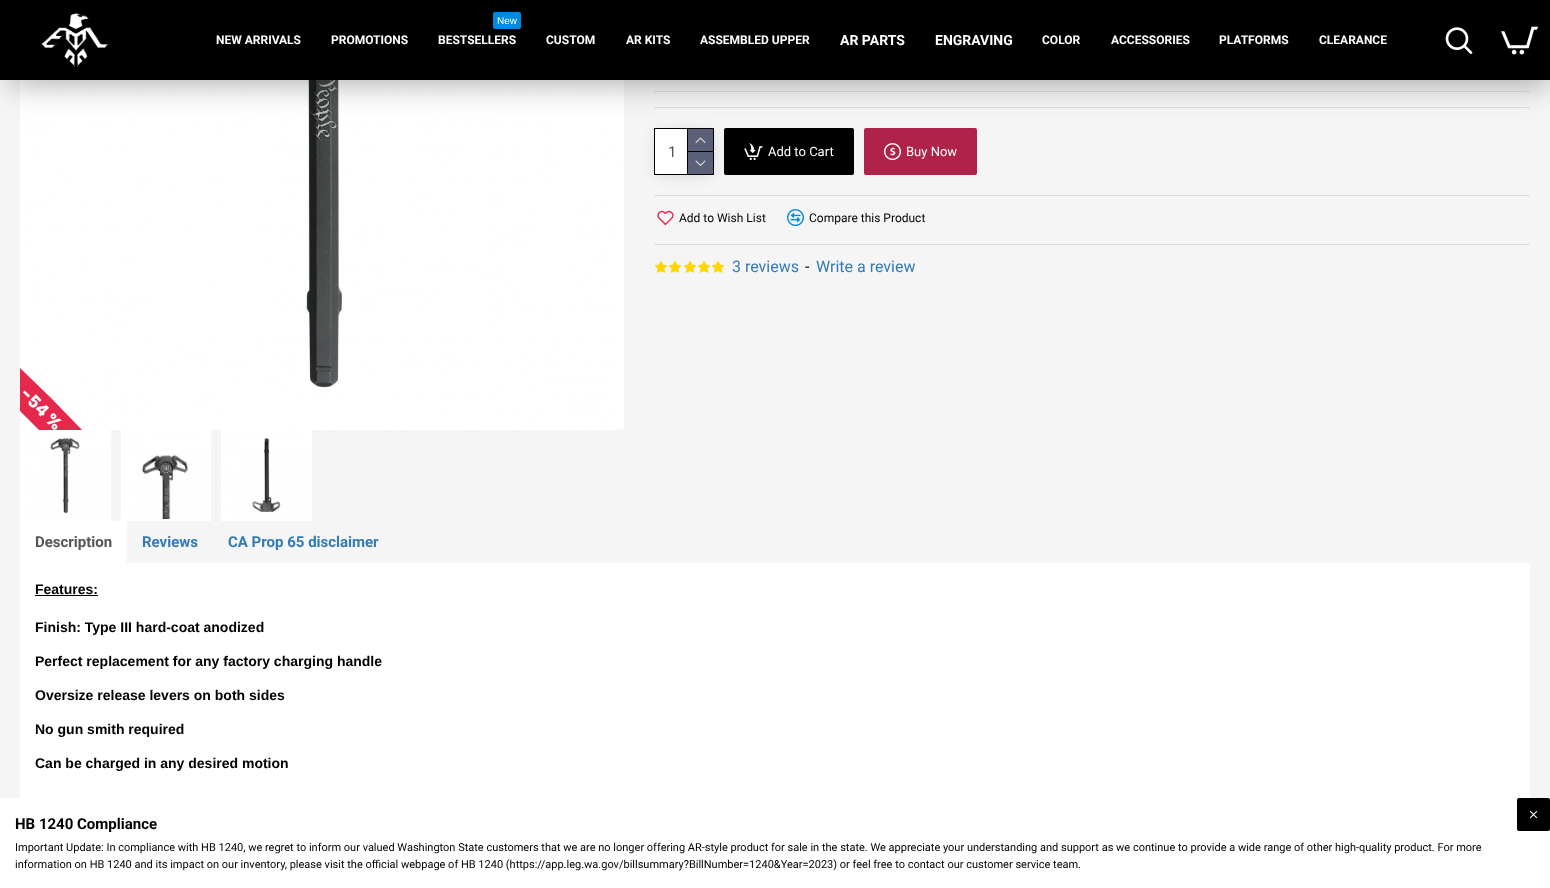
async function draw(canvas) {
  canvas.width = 1550;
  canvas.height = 888;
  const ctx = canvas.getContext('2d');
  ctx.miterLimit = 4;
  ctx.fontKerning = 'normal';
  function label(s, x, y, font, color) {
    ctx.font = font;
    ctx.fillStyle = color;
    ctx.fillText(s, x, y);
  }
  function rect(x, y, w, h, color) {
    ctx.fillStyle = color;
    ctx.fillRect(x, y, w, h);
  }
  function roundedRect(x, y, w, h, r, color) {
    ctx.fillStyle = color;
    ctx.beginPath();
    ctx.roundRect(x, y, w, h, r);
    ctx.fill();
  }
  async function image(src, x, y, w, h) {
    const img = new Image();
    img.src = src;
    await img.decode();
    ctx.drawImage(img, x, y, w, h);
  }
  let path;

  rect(0, 0, 1550, 888, '#f5f5f5');
  rect(654, 91, 876, 1, '#ddd');
  rect(654, 107, 876, 1, '#ddd');
  ctx.strokeStyle = '#000';
  ctx.strokeRect(654.5, 128.5, 59, 46);
  rect(654, 195, 876, 1, '#ddd');
  ctx.fillStyle = '#00000026';
  ctx.filter = 'blur(7.5px)';
  ctx.beginPath();
  ctx.rect(657, 133, 54, 41);
  ctx.fill();
  ctx.filter = 'none';
  roundedRect(655, 129, 58, 45, 2, '#fff');
  rect(687, 129, 1, 45, '#000');
  rect(688, 129, 25, 22, '#596077');
  roundedRect(724, 128, 130, 47, 2, '#000');
  roundedRect(864, 128, 113, 47, 2, '#af234a');
  await image('assets/img12.png', 20, 80, 604, 350);
  ctx.fillStyle = '#0000004d';
  ctx.filter = 'blur(15px)';
  ctx.beginPath();
  ctx.rect(10, -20, 1540, 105);
  ctx.fill();
  ctx.filter = 'none';
  rect(0, 0, 1550, 80, '#000');
  await image('assets/img1.png', 41, 13, 68, 54);
  label('NEW ARRIVALS', 216, 44, 'bold 12px Roboto', '#fff');
  label('PROMOTIONS', 331, 44, 'bold 12px Roboto', '#fff');
  roundedRect(493, 12, 28, 17, 2, '#008add');
  label('New', 497, 24, '10px Liberation Sans', '#fff');
  label('BESTSELLERS', 438, 44, 'bold 12px Roboto', '#fff');
  label('CUSTOM', 546, 44, 'bold 12px Roboto', '#fff');
  label('AR KITS', 626, 44, 'bold 12px Roboto', '#fff');
  label('ASSEMBLED UPPER', 700, 44, 'bold 12px Roboto', '#fff');
  label('AR PARTS', 840, 45, 'bold 14px Roboto', '#fff');
  label('ENGRAVING', 935, 45, 'bold 14px Roboto', '#fff');
  label('COLOR', 1042, 44, 'bold 12px Roboto', '#fff');
  label('ACCESSORIES', 1111, 44, 'bold 12px Roboto', '#fff');
  label('PLATFORMS', 1219, 44, 'bold 12px Roboto', '#fff');
  label('CLEARANCE', 1319, 44, 'bold 12px Roboto', '#fff');
  await image('assets/img2.png', 1445, 27, 28, 27);
  await image('assets/img3.png', 1501, 26, 37, 29);
  label('1', 668, 157, '15px Roboto', '#555');
  rect(688, 151, 25, 1, '#000');
  await image('assets/img4.png', 695, 137, 11, 6);
  rect(688, 152, 25, 22, '#596077');
  await image('assets/img5.png', 695, 160, 11, 6);
  await image('assets/img6.png', 744, 143, 19, 17);
  label('Add to Cart', 768, 156, '13px Roboto', '#fff');
  await image('assets/img7.png', 884, 143, 17, 18);
  label('Buy Now', 906, 156, '13px Roboto', '#fff');
  await image('assets/img8.png', 657, 210, 17, 16);
  label('Add to Wish List', 679, 222, '12px Roboto', '#000');
  await image('assets/img9.png', 787, 209, 17, 18);
  label('Compare this Product', 809, 222, '12px Roboto', '#000');
  rect(654, 244, 876, 1, '#ddd');
  await image('assets/img10.png', 655, 261, 12, 12);
  await image('assets/img11.png', 655, 261, 12, 12);
  await image('assets/img10.png', 669, 261, 12, 12);
  await image('assets/img11.png', 669, 261, 12, 12);
  await image('assets/img10.png', 684, 261, 12, 12);
  await image('assets/img11.png', 684, 261, 12, 12);
  await image('assets/img10.png', 698, 261, 12, 12);
  await image('assets/img11.png', 698, 261, 12, 12);
  await image('assets/img10.png', 712, 261, 12, 12);
  await image('assets/img11.png', 712, 261, 12, 12);
  label('3 reviews', 732, 272, '16px Roboto', '#337ab7');
  label('-', 805, 272, '16px Roboto', '#000');
  label('Write a review', 816, 272, '16px Roboto', '#337ab7');
  ctx.fillStyle = '#e7284d';
  path = new Path2D('M51 398L82 430H39L20 411V368Z');
  ctx.fill(path);
  ctx.font = 'bold 17px Poppins';
  ctx.fillStyle = '#fff';
  ctx.save();
  ctx.translate(19, 395);
  ctx.rotate(45 * Math.PI / 180);
  ctx.fillText('-54 %', 0, 0);
  ctx.restore();
  ctx.strokeStyle = '#fff';
  ctx.lineWidth = 2;
  ctx.strokeRect(21, 431, 89, 89);
  await image('assets/img13.png', 22, 432, 87, 87);
  ctx.strokeRect(122, 431, 88, 89);
  await image('assets/img14.png', 123, 432, 86, 87);
  ctx.strokeRect(222, 431, 89, 89);
  await image('assets/img15.png', 223, 432, 87, 87);
  rect(20, 521, 107, 42, '#fff');
  label('Description', 35, 547, 'bold 15px Roboto', '#555');
  label('Reviews', 142, 547, 'bold 15px Roboto', '#337ab7');
  label('CA Prop 65 disclaimer', 228, 547, 'bold 15px Roboto', '#337ab7');
  rect(20, 563, 1510, 235, '#fff');
  label('Features:', 35, 594, 'bold 14px Liberation Sans', '#000');
  rect(35, 595, 63, 1, '#000');
  label('Finish: Type III hard-coat anodized', 35, 632, 'bold 14px Liberation Sans', '#000');
  label('Perfect replacement for any factory charging handle', 35, 666, 'bold 14px Liberation Sans', '#000');
  label('Oversize release levers on both sides', 35, 700, 'bold 14px Liberation Sans', '#000');
  label('No gun smith required', 35, 734, 'bold 14px Liberation Sans', '#000');
  label('Can be charged in any desired motion', 35, 768, 'bold 14px Liberation Sans', '#000');
  rect(0, 798, 1550, 90, '#fff');
  label('HB 1240 Compliance', 15, 829, 'bold 15px Roboto', '#000');
  label('Important Update: In compliance with HB 1240, we regret to inform our valued Washington State customers that we are no longer offering AR-style product for sale in the state. We appreciate your understanding and support as we continue to provide a wide range of other high-quality product. For more', 15, 851, '11px Roboto', '#000');
  label('information on HB 1240 and its impact on our inventory, please visit the official webpage of HB 1240 (https://app.leg.wa.gov/billsummary?BillNumber=1240&Year=2023) or feel free to contact our customer service team.', 15, 868, '11px Roboto', '#000');
  roundedRect(1517, 798, 33, 33, 2, '#000');
  await image('assets/img16.png', 1529, 810, 9, 9);
}

draw(document.querySelector('canvas'));
